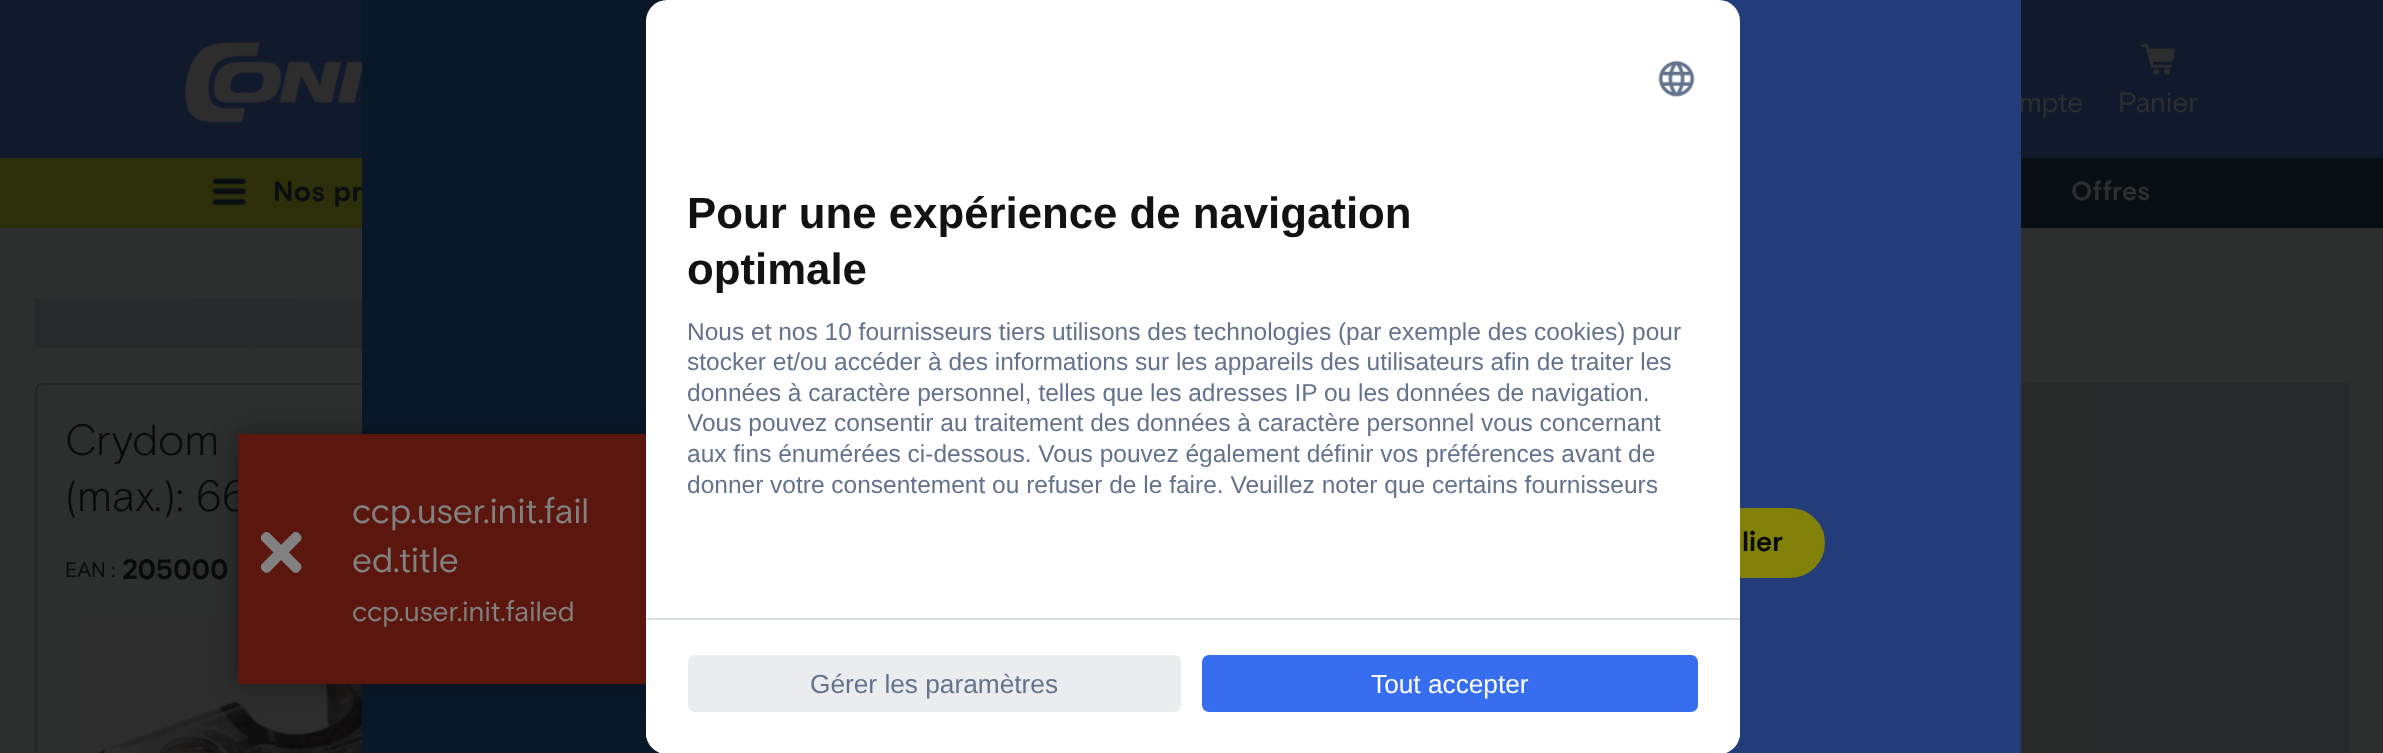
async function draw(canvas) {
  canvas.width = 2383;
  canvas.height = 753;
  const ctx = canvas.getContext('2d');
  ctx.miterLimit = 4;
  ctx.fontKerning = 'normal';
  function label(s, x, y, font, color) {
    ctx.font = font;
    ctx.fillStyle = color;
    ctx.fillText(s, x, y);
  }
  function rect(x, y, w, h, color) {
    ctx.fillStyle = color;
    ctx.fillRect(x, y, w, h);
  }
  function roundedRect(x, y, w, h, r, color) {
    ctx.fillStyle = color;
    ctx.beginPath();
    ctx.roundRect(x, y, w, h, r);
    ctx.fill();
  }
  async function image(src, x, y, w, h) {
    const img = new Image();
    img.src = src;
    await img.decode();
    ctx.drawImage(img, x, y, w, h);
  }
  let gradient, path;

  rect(0, 0, 2383, 753, '#2d2e2e');
  gradient = ctx.createLinearGradient(-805, 323, 1295, 323);
  gradient.addColorStop(0.46, '#28292a');
  gradient.addColorStop(0.5, '#292a2b');
  gradient.addColorStop(0.54, '#28292a');
  ctx.fillStyle = gradient;
  ctx.fillRect(35, 298, 327, 50);
  ctx.beginPath();
  ctx.roundRect(36, 384, 1526, 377, 6);
  ctx.strokeStyle = '#222527';
  ctx.lineWidth = 2;
  ctx.stroke();
  label('Crydom', 65, 455, '300 43.75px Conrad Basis', '#090a0a');
  label('(max.): 66', 65, 511, '300 43.75px Conrad Basis', '#090a0a');
  label('EAN :', 65, 577, '21px Conrad Basis', '#090a0a');
  label('205000', 122, 579, 'bold 28px Conrad Basis', '#090a0a');
  await image('assets/img1.png', 89, 616, 273, 137);
  gradient = ctx.createLinearGradient(119, 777, 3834, 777);
  gradient.addColorStop(0.46, '#28292a');
  gradient.addColorStop(0.5, '#292b2b');
  gradient.addColorStop(0.54, '#28292a');
  ctx.fillStyle = gradient;
  ctx.fillRect(2021, 383, 328, 370);
  rect(0, 0, 2383, 158, '#11192c');
  await image('assets/img2.png', 185, 41, 177, 82);
  label('mpte', 2019, 112, '28px Conrad Basis', '#2d2e2e');
  await image('assets/img3.png', 2140, 44, 35, 31);
  label('Panier', 2118, 112, '28px Conrad Basis', '#2d2e2e');
  rect(2021, 158, 362, 70, '#090e13');
  rect(0, 158, 362, 70, '#2d2e0a');
  await image('assets/img4.png', 212, 178, 35, 27);
  ctx.letterSpacing = '0.5px';
  label('Nos pr', 273, 201, 'bold 28px Conrad Basis', '#090e13');
  label('Offres', 2071, 200, 'bold 26.25px Conrad Basis', '#2d2e2e');
  rect(362, 0, 305, 753, '#091829');
  rect(1719, 0, 302, 753, '#233d7a');
  ctx.fillStyle = '#81810a';
  ctx.beginPath();
  ctx.roundRect(1390, 510, 433, 66, 33);
  ctx.fill();
  ctx.strokeStyle = '#81810a';
  ctx.lineWidth = 4;
  ctx.stroke();
  ctx.letterSpacing = '0px';
  label('lier', 1742, 551, 'bold 28px Conrad Basis', '#090a0a');
  ctx.fillStyle = '#090a0a80';
  ctx.filter = 'blur(13px)';
  ctx.beginPath();
  ctx.rect(238, 434, 485, 250);
  ctx.fill();
  ctx.filter = 'none';
  rect(238, 434, 408, 250, '#5b170d');
  await image('assets/img5.png', 261, 532, 41, 41);
  label('ccp.user.init.fail', 352, 523, '35px Conrad Basis', '#818182');
  label('ed.title', 352, 572, '35px Conrad Basis', '#818182');
  label('ccp.user.init.failed', 352, 621, '28px Conrad Basis', '#818182');
  roundedRect(646, 0, 1094, 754, 21, '#fff');
  await image('assets/img6.png', 1658, 60, 37, 37);
  label('Pour une expérience de navigation', 687, 228, 'bold 43.75px Liberation Sans', '#111213');
  label('optimale', 687, 284, 'bold 43.75px Liberation Sans', '#111213');
  label('Nous et nos 10 fournisseurs tiers utilisons des technologies (par exemple des cookies) pour', 687, 340, '24.5px Liberation Sans', '#63738e');
  label('stocker et/ou accéder à des informations sur les appareils des utilisateurs afin de traiter les', 687, 370, '24.5px Liberation Sans', '#63738e');
  label('données à caractère personnel, telles que les adresses IP ou les données de navigation.', 687, 401, '24.5px Liberation Sans', '#63738e');
  ctx.save();
  ctx.beginPath();
  ctx.rect(688, 310, 1010, 196);
  ctx.clip();
  label('Vous pouvez consentir au traitement des données à caractère personnel vous concernant', 687, 431, '24.5px Liberation Sans', '#63738e');
  ctx.restore();
  label('aux fins énumérées ci-dessous. Vous pouvez également définir vos préférences avant de', 687, 462, '24.5px Liberation Sans', '#63738e');
  label('donner votre consentement ou refuser de le faire. Veuillez noter que certains fournisseurs', 687, 493, '24.5px Liberation Sans', '#63738e');
  ctx.fillStyle = '#fff';
  path = new Path2D('M646 618H1740V733C1740 744.5 1730.5 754 1719 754H667C655.5 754 646 744.5 646 733Z');
  ctx.fill(path);
  rect(646, 618, 1094, 2, '#d9dfe4');
  roundedRect(688, 655, 493, 57, 7, '#eaecee');
  label('Gérer les paramètres', 810, 693, '26.25px Liberation Sans', '#63738e');
  roundedRect(1202, 655, 496, 57, 7, '#376eef');
  label('Tout accepter', 1371, 693, '26.25px Liberation Sans', '#fff');
}

draw(document.querySelector('canvas'));
